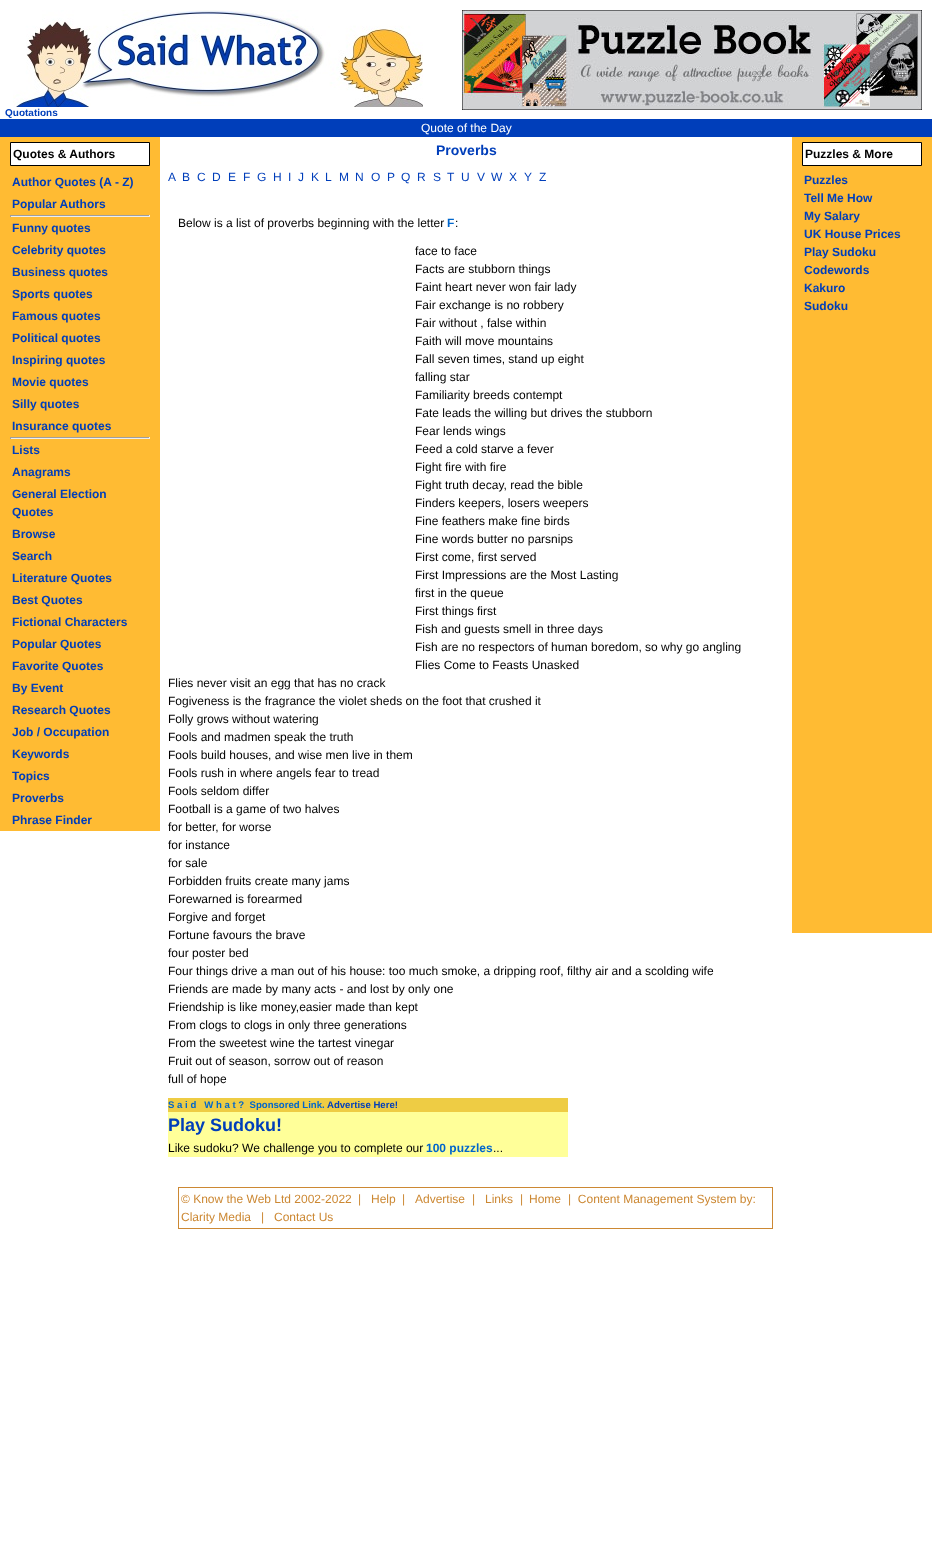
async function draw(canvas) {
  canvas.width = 932;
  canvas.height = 1554;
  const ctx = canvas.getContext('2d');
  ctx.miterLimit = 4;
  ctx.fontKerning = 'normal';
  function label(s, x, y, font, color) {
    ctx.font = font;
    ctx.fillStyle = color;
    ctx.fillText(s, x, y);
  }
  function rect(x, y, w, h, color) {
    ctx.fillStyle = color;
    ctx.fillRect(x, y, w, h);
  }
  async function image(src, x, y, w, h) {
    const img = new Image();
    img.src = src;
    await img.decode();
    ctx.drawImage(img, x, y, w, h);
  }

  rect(0, 0, 932, 1554, '#fff');
  await image('assets/img1.png', 462, 10, 460, 100);
  await image('assets/img2.png', 13, 10, 410, 97);
  label('Quotations', 5, 116, 'bold 10px Liberation Sans', '#003eba');
  rect(0, 119, 932, 18, '#003eba');
  label('Quote of the Day', 421, 132, '12px Liberation Sans', '#fff');
  rect(0, 137, 160, 694, '#fb3');
  ctx.fillStyle = '#fff';
  ctx.beginPath();
  ctx.rect(10.5, 142.5, 139, 23);
  ctx.fill();
  ctx.strokeStyle = '#000';
  ctx.stroke();
  label('Quotes & Authors', 13, 158, 'bold 12px Liberation Sans', '#000');
  label('Author Quotes (A - Z)', 12, 186, 'bold 12px Liberation Sans', '#003eba');
  label('Popular Authors', 12, 208, 'bold 12px Liberation Sans', '#003eba');
  rect(10, 215, 140, 1, '#9f9f9f');
  rect(149, 215, 1, 2, '#eee');
  rect(10, 216, 140, 1, '#eee');
  rect(10, 215, 1, 2, '#9f9f9f');
  label('Funny quotes', 12, 232, 'bold 12px Liberation Sans', '#003eba');
  label('Celebrity quotes', 12, 254, 'bold 12px Liberation Sans', '#003eba');
  label('Business quotes', 12, 276, 'bold 12px Liberation Sans', '#003eba');
  label('Sports quotes', 12, 298, 'bold 12px Liberation Sans', '#003eba');
  label('Famous quotes', 12, 320, 'bold 12px Liberation Sans', '#003eba');
  label('Political quotes', 12, 342, 'bold 12px Liberation Sans', '#003eba');
  label('Inspiring quotes', 12, 364, 'bold 12px Liberation Sans', '#003eba');
  label('Movie quotes', 12, 386, 'bold 12px Liberation Sans', '#003eba');
  label('Silly quotes', 12, 408, 'bold 12px Liberation Sans', '#003eba');
  label('Insurance quotes', 12, 430, 'bold 12px Liberation Sans', '#003eba');
  rect(10, 437, 140, 1, '#9f9f9f');
  rect(149, 437, 1, 2, '#eee');
  rect(10, 438, 140, 1, '#eee');
  rect(10, 437, 1, 2, '#9f9f9f');
  label('Lists', 12, 454, 'bold 12px Liberation Sans', '#003eba');
  label('Anagrams', 12, 476, 'bold 12px Liberation Sans', '#003eba');
  label('General Election', 12, 498, 'bold 12px Liberation Sans', '#003eba');
  label('Quotes', 12, 516, 'bold 12px Liberation Sans', '#003eba');
  label('Browse', 12, 538, 'bold 12px Liberation Sans', '#003eba');
  label('Search', 12, 560, 'bold 12px Liberation Sans', '#003eba');
  label('Literature Quotes', 12, 582, 'bold 12px Liberation Sans', '#003eba');
  label('Best Quotes', 12, 604, 'bold 12px Liberation Sans', '#003eba');
  label('Fictional Characters', 12, 626, 'bold 12px Liberation Sans', '#003eba');
  label('Popular Quotes', 12, 648, 'bold 12px Liberation Sans', '#003eba');
  label('Favorite Quotes', 12, 670, 'bold 12px Liberation Sans', '#003eba');
  label('By Event', 12, 692, 'bold 12px Liberation Sans', '#003eba');
  label('Research Quotes', 12, 714, 'bold 12px Liberation Sans', '#003eba');
  label('Job / Occupation', 12, 736, 'bold 12px Liberation Sans', '#003eba');
  label('Keywords', 12, 758, 'bold 12px Liberation Sans', '#003eba');
  label('Topics', 12, 780, 'bold 12px Liberation Sans', '#003eba');
  label('Proverbs', 12, 802, 'bold 12px Liberation Sans', '#003eba');
  label('Phrase Finder', 12, 824, 'bold 12px Liberation Sans', '#003eba');
  label('Proverbs', 436, 155, 'bold 14px Liberation Sans', '#003eba');
  rect(792, 137, 140, 796, '#fb3');
  ctx.fillStyle = '#fff';
  ctx.beginPath();
  ctx.rect(802.5, 142.5, 119, 23);
  ctx.fill();
  ctx.stroke();
  label('Puzzles & More', 805, 158, 'bold 12px Liberation Sans', '#000');
  label('Puzzles', 804, 184, 'bold 12px Liberation Sans', '#003eba');
  label('Tell Me How', 804, 202, 'bold 12px Liberation Sans', '#003eba');
  label('My Salary', 804, 220, 'bold 12px Liberation Sans', '#003eba');
  label('UK House Prices', 804, 238, 'bold 12px Liberation Sans', '#003eba');
  label('Play Sudoku', 804, 256, 'bold 12px Liberation Sans', '#003eba');
  label('Codewords', 804, 274, 'bold 12px Liberation Sans', '#003eba');
  label('Kakuro', 804, 292, 'bold 12px Liberation Sans', '#003eba');
  label('Sudoku', 804, 310, 'bold 12px Liberation Sans', '#003eba');
  label('A', 168, 181, '12px Liberation Sans', '#003eba');
  label('B', 182, 181, '12px Liberation Sans', '#003eba');
  label('C', 197, 181, '12px Liberation Sans', '#003eba');
  label('D', 212, 181, '12px Liberation Sans', '#003eba');
  label('E', 228, 181, '12px Liberation Sans', '#003eba');
  label('F', 243, 181, '12px Liberation Sans', '#003eba');
  label('G', 257, 181, '12px Liberation Sans', '#003eba');
  label('H', 273, 181, '12px Liberation Sans', '#003eba');
  label('I', 288, 181, '12px Liberation Sans', '#003eba');
  label('J', 298, 181, '12px Liberation Sans', '#003eba');
  label('K', 311, 181, '12px Liberation Sans', '#003eba');
  label('L', 325, 181, '12px Liberation Sans', '#003eba');
  label('M', 339, 181, '12px Liberation Sans', '#003eba');
  label('N', 355, 181, '12px Liberation Sans', '#003eba');
  label('O', 371, 181, '12px Liberation Sans', '#003eba');
  label('P', 387, 181, '12px Liberation Sans', '#003eba');
  label('Q', 401, 181, '12px Liberation Sans', '#003eba');
  label('R', 417, 181, '12px Liberation Sans', '#003eba');
  label('S', 433, 181, '12px Liberation Sans', '#003eba');
  label('T', 447, 181, '12px Liberation Sans', '#003eba');
  label('U', 461, 181, '12px Liberation Sans', '#003eba');
  label('V', 477, 181, '12px Liberation Sans', '#003eba');
  label('W', 491, 181, '12px Liberation Sans', '#003eba');
  label('X', 509, 181, '12px Liberation Sans', '#003eba');
  label('Y', 524, 181, '12px Liberation Sans', '#003eba');
  label('Z', 539, 181, '12px Liberation Sans', '#003eba');
  label('Below is a list of proverbs beginning with the letter', 178, 227, '12px Liberation Sans', '#000');
  label('F', 447, 227, 'bold 12px Liberation Sans', '#06c');
  label(':', 455, 227, '12px Liberation Sans', '#000');
  label('face to face', 415, 255, '12px Liberation Sans', '#000');
  label('Facts are stubborn things', 415, 273, '12px Liberation Sans', '#000');
  label('Faint heart never won fair lady', 415, 291, '12px Liberation Sans', '#000');
  label('Fair exchange is no robbery', 415, 309, '12px Liberation Sans', '#000');
  label('Fair without , false within', 415, 327, '12px Liberation Sans', '#000');
  label('Faith will move mountains', 415, 345, '12px Liberation Sans', '#000');
  label('Fall seven times, stand up eight', 415, 363, '12px Liberation Sans', '#000');
  label('falling star', 415, 381, '12px Liberation Sans', '#000');
  label('Familiarity breeds contempt', 415, 399, '12px Liberation Sans', '#000');
  label('Fate leads the willing but drives the stubborn', 415, 417, '12px Liberation Sans', '#000');
  label('Fear lends wings', 415, 435, '12px Liberation Sans', '#000');
  label('Feed a cold starve a fever', 415, 453, '12px Liberation Sans', '#000');
  label('Fight fire with fire', 415, 471, '12px Liberation Sans', '#000');
  label('Fight truth decay, read the bible', 415, 489, '12px Liberation Sans', '#000');
  label('Finders keepers, losers weepers', 415, 507, '12px Liberation Sans', '#000');
  label('Fine feathers make fine birds', 415, 525, '12px Liberation Sans', '#000');
  label('Fine words butter no parsnips', 415, 543, '12px Liberation Sans', '#000');
  label('First come, first served', 415, 561, '12px Liberation Sans', '#000');
  label('First Impressions are the Most Lasting', 415, 579, '12px Liberation Sans', '#000');
  label('first in the queue', 415, 597, '12px Liberation Sans', '#000');
  label('First things first', 415, 615, '12px Liberation Sans', '#000');
  label('Fish and guests smell in three days', 415, 633, '12px Liberation Sans', '#000');
  label('Fish are no respectors of human boredom, so why go angling', 415, 651, '12px Liberation Sans', '#000');
  label('Flies Come to Feasts Unasked', 415, 669, '12px Liberation Sans', '#000');
  label('Flies never visit an egg that has no crack', 168, 687, '12px Liberation Sans', '#000');
  label('Fogiveness is the fragrance the violet sheds on the foot that crushed it', 168, 705, '12px Liberation Sans', '#000');
  label('Folly grows without watering', 168, 723, '12px Liberation Sans', '#000');
  label('Fools and madmen speak the truth', 168, 741, '12px Liberation Sans', '#000');
  label('Fools build houses, and wise men live in them', 168, 759, '12px Liberation Sans', '#000');
  label('Fools rush in where angels fear to tread', 168, 777, '12px Liberation Sans', '#000');
  label('Fools seldom differ', 168, 795, '12px Liberation Sans', '#000');
  label('Football is a game of two halves', 168, 813, '12px Liberation Sans', '#000');
  label('for better, for worse', 168, 831, '12px Liberation Sans', '#000');
  label('for instance', 168, 849, '12px Liberation Sans', '#000');
  label('for sale', 168, 867, '12px Liberation Sans', '#000');
  label('Forbidden fruits create many jams', 168, 885, '12px Liberation Sans', '#000');
  label('Forewarned is forearmed', 168, 903, '12px Liberation Sans', '#000');
  label('Forgive and forget', 168, 921, '12px Liberation Sans', '#000');
  label('Fortune favours the brave', 168, 939, '12px Liberation Sans', '#000');
  label('four poster bed', 168, 957, '12px Liberation Sans', '#000');
  label('Four things drive a man out of his house: too much smoke, a dripping roof, filthy air and a scolding wife', 168, 975, '12px Liberation Sans', '#000');
  label('Friends are made by many acts - and lost by only one', 168, 993, '12px Liberation Sans', '#000');
  label('Friendship is like money,easier made than kept', 168, 1011, '12px Liberation Sans', '#000');
  label('From clogs to clogs in only three generations', 168, 1029, '12px Liberation Sans', '#000');
  label('From the sweetest wine the tartest vinegar', 168, 1047, '12px Liberation Sans', '#000');
  label('Fruit out of season, sorrow out of reason', 168, 1065, '12px Liberation Sans', '#000');
  label('full of hope', 168, 1083, '12px Liberation Sans', '#000');
  rect(168, 1098, 400, 14, '#ec4');
  label('S a i d   W h a t ?  Sponsored Link.', 168, 1108, 'bold 9.6px Liberation Sans', '#06c');
  label('Advertise Here!', 327, 1108, 'bold 9.6px Liberation Sans', '#003eba');
  rect(168, 1112, 400, 45, '#ff9');
  label('Play Sudoku!', 168, 1131, 'bold 18px Liberation Sans', '#003eba');
  label('Like sudoku? We challenge you to complete our', 168, 1152, '12px Liberation Sans', '#000');
  label('100 puzzles', 426, 1152, 'bold 12px Liberation Sans', '#06c');
  label('...', 493, 1152, '12px Liberation Sans', '#000');
  ctx.strokeStyle = '#c83';
  ctx.strokeRect(178.5, 1187.5, 594, 41);
  label('© Know the Web Ltd 2002-2022', 181, 1203, '12px Liberation Sans', '#c83');
  label('|', 358, 1203, '12px Liberation Sans', '#c83');
  label('Help', 371, 1203, '12px Liberation Sans', '#c83');
  label('|', 402, 1203, '12px Liberation Sans', '#c83');
  label('Advertise', 415, 1203, '12px Liberation Sans', '#c83');
  label('|', 472, 1203, '12px Liberation Sans', '#c83');
  label('Links', 485, 1203, '12px Liberation Sans', '#c83');
  label('|', 520, 1203, '12px Liberation Sans', '#c83');
  label('Home', 529, 1203, '12px Liberation Sans', '#c83');
  label('|  Content Management System by:', 568, 1203, '12px Liberation Sans', '#c83');
  label('Clarity Media', 181, 1221, '12px Liberation Sans', '#c83');
  label('|', 261, 1221, '12px Liberation Sans', '#c83');
  label('Contact Us', 274, 1221, '12px Liberation Sans', '#c83');
}

draw(document.querySelector('canvas'));
